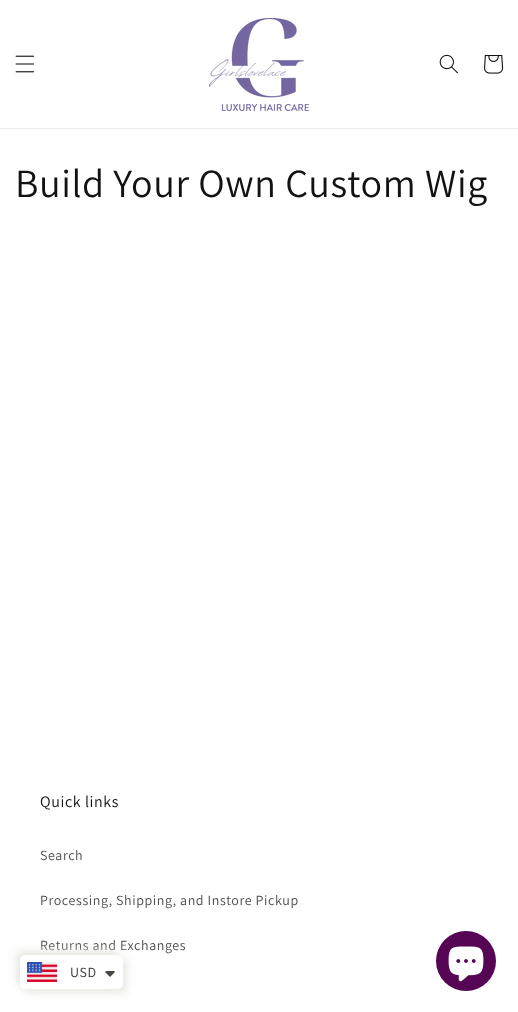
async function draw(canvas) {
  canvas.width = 518;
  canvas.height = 1012;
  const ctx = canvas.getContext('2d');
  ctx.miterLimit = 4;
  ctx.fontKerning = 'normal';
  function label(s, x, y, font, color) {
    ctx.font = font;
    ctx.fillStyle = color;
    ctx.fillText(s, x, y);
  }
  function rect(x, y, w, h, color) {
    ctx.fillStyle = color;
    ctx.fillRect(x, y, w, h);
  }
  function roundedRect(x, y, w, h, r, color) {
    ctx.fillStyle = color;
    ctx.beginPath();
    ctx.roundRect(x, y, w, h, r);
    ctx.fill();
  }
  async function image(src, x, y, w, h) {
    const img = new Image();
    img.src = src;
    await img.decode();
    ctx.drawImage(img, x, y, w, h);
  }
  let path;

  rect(0, 0, 518, 1012, '#fff');
  rect(0, 128, 518, 1, '#ececec');
  await image('assets/img1.png', 15, 55, 20, 18);
  await image('assets/img2.png', 209, 18, 100, 93);
  await image('assets/img3.png', 439, 54, 19, 20);
  await image('assets/img4.png', 484, 55, 20, 19);
  ctx.letterSpacing = '0.6px';
  label('Build Your Own Custom Wig', 15, 197, '40px Assistant', '#121212');
  label('Quick links', 40, 807, '16px Assistant', '#121212');
  label('Search', 40, 860, '14px Assistant', '#4d4d4d');
  label('Processing, Shipping, and Instore Pickup', 40, 905, '14px Assistant', '#4d4d4d');
  label('Returns and Exchanges', 40, 950, '14px Assistant', '#4d4d4d');
  ctx.fillStyle = '#e8e8e2';
  ctx.filter = 'blur(4.5px)';
  ctx.beginPath();
  ctx.roundRect(16, 951, 103, 34, 5);
  ctx.fill();
  ctx.filter = 'none';
  ctx.filter = 'blur(4.5px)';
  ctx.beginPath();
  ctx.roundRect(24, 959, 103, 34, 5);
  ctx.fill();
  ctx.filter = 'none';
  roundedRect(20, 955, 103, 34, 5, '#fff');
  await image('assets/img5.png', 27, 962, 30, 20);
  label('USD', 70, 977, '14px Assistant', '#333');
  ctx.fillStyle = '#474942';
  path = new Path2D('M107 971C106 971 105.5 971.5 105 972L110 977L115 972L114 971Z');
  ctx.fill(path);
  ctx.fillStyle = '#550554';
  ctx.beginPath();
  ctx.arc(466, 961, 30, 0, 2 * Math.PI);
  ctx.fill();
  await image('assets/img6.png', 448, 946, 36, 36);
}

draw(document.querySelector('canvas'));
